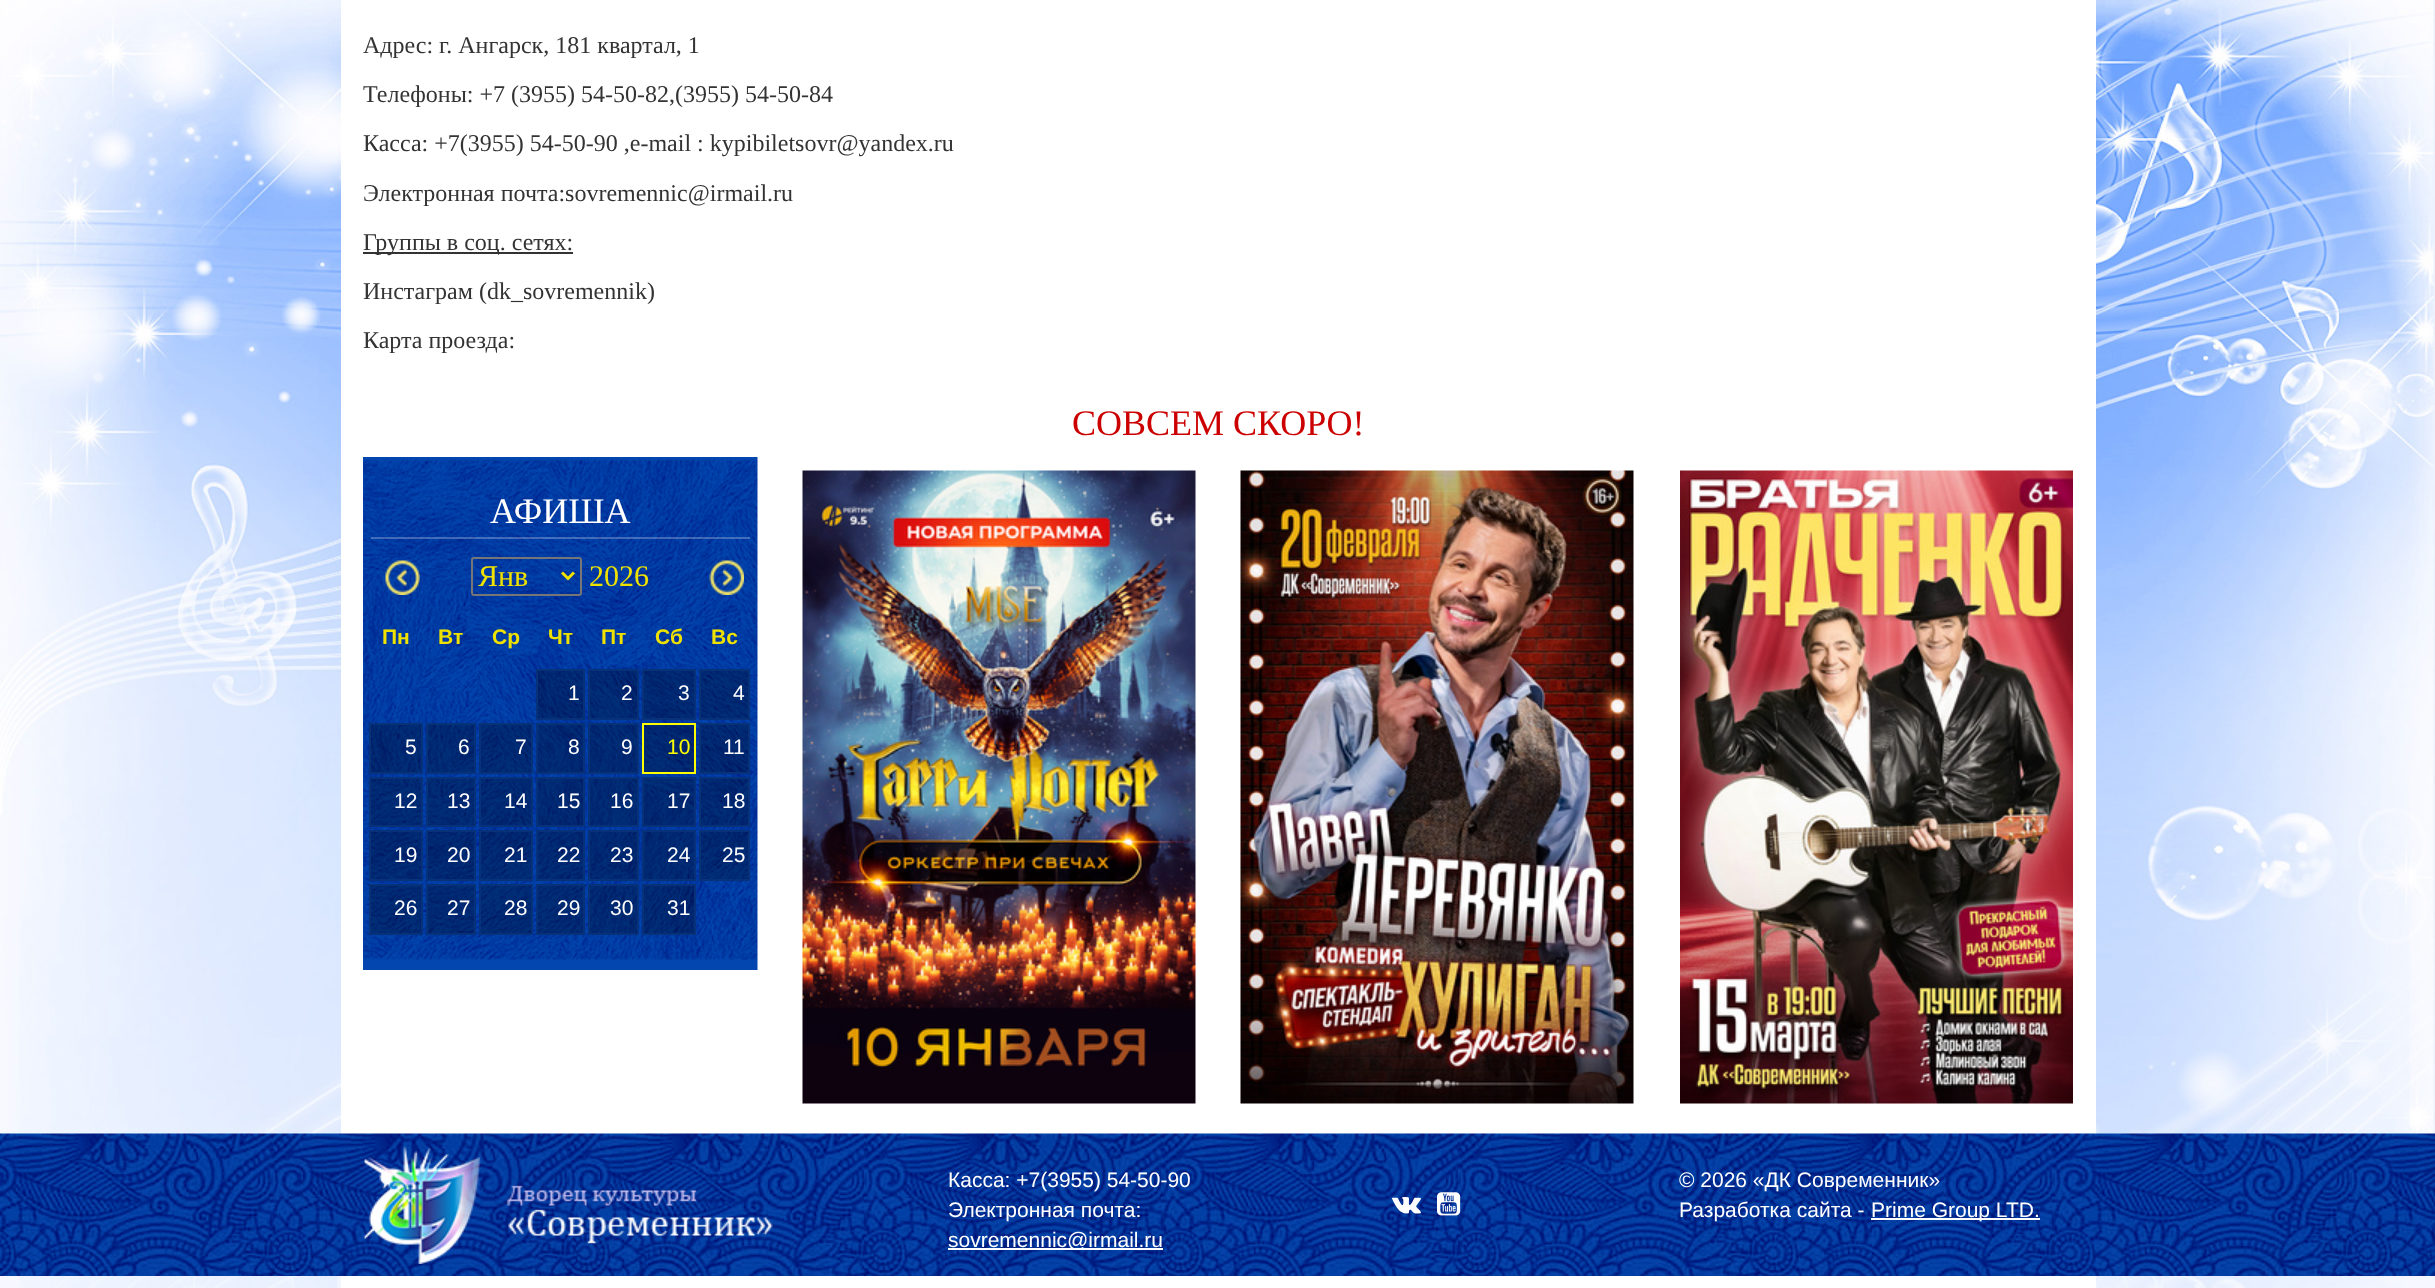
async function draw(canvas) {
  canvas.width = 2435;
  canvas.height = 1288;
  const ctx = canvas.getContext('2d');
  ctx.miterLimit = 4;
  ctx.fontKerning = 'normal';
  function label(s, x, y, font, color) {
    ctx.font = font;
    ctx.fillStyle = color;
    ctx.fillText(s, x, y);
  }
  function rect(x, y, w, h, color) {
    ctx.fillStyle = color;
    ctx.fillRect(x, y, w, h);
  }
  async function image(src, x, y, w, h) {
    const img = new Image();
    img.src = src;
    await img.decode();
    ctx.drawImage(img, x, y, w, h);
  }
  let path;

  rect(0, 0, 2435, 1288, '#fff');
  await image('assets/img1.png', 0, 0, 2435, 1288);
  rect(341, 0, 1755, 1288, '#fff');
  label('Адрес: г. Ангарск, 181 квартал, 1', 363, 53, '24px Liberation Serif', '#333');
  label('Телефоны: +7 (3955) 54-50-82,(3955) 54-50-84', 363, 102, '24px Liberation Serif', '#333');
  label('Касса: +7(3955) 54-50-90 ,e-mail : kypibiletsovr@yandex.ru', 363, 151, '24px Liberation Serif', '#333');
  label('Электронная почта:sovremennic@irmail.ru', 363, 201, '24px Liberation Serif', '#333');
  rect(363, 252, 210, 2, '#333');
  label('Группы в соц. сетях:', 363, 250, '24px Liberation Serif', '#333');
  label('Инстаграм (dk_sovremennik)', 363, 299, '24px Liberation Serif', '#333');
  label('Карта проезда:', 363, 348, '24px Liberation Serif', '#333');
  label('СОВСЕМ СКОРО!', 1072, 435, '36px Liberation Serif', '#c00');
  await image('assets/img2.png', 363, 457, 395, 513);
  rect(371, 537, 379, 2, '#ffffff42');
  label('АФИША', 490, 523, '36px Liberation Serif', '#fff');
  await image('assets/img3.png', 385, 560, 35, 35);
  ctx.beginPath();
  ctx.roundRect(472, 558, 109, 37, 2);
  ctx.strokeStyle = '#767676';
  ctx.lineWidth = 2;
  ctx.stroke();
  path = new Path2D('M562 572.5L568 578.5L574 572.5');
  ctx.strokeStyle = '#efe201';
  ctx.lineWidth = 3;
  ctx.stroke(path);
  label('Янв', 478, 586, '30px Liberation Serif', '#efe201');
  label('2026', 589, 586, '30px Liberation Serif', '#efe201');
  await image('assets/img4.png', 709, 560, 35, 35);
  label('Пн', 382, 644, 'bold 21px Liberation Sans', '#efe201');
  label('Вт', 438, 644, 'bold 21px Liberation Sans', '#efe201');
  label('Ср', 492, 644, 'bold 21px Liberation Sans', '#efe201');
  label('Чт', 548, 644, 'bold 21px Liberation Sans', '#efe201');
  label('Пт', 601, 644, 'bold 21px Liberation Sans', '#efe201');
  label('Сб', 655, 644, 'bold 21px Liberation Sans', '#efe201');
  label('Вс', 711, 644, 'bold 21px Liberation Sans', '#efe201');
  ctx.fillStyle = '#0000004d';
  ctx.beginPath();
  ctx.rect(537, 670, 47, 49);
  ctx.fill();
  ctx.strokeStyle = '#073279';
  ctx.lineWidth = 2;
  ctx.stroke();
  label('1', 568, 700, '21px Liberation Sans', '#fff');
  ctx.fillStyle = '#0000004d';
  ctx.beginPath();
  ctx.rect(589, 670, 49, 49);
  ctx.fill();
  ctx.stroke();
  label('2', 621, 700, '21px Liberation Sans', '#fff');
  ctx.fillStyle = '#0000004d';
  ctx.beginPath();
  ctx.rect(643, 670, 52, 49);
  ctx.fill();
  ctx.stroke();
  label('3', 678, 700, '21px Liberation Sans', '#fff');
  ctx.fillStyle = '#0000004d';
  ctx.beginPath();
  ctx.rect(700, 670, 49, 49);
  ctx.fill();
  ctx.stroke();
  label('4', 733, 700, '21px Liberation Sans', '#fff');
  ctx.fillStyle = '#0000004d';
  ctx.beginPath();
  ctx.rect(370, 724, 52, 49);
  ctx.fill();
  ctx.stroke();
  label('5', 405, 754, '21px Liberation Sans', '#fff');
  ctx.fillStyle = '#0000004d';
  ctx.beginPath();
  ctx.rect(427, 724, 48, 49);
  ctx.fill();
  ctx.stroke();
  label('6', 458, 754, '21px Liberation Sans', '#fff');
  ctx.fillStyle = '#0000004d';
  ctx.beginPath();
  ctx.rect(480, 724, 52, 49);
  ctx.fill();
  ctx.stroke();
  label('7', 515, 754, '21px Liberation Sans', '#fff');
  ctx.fillStyle = '#0000004d';
  ctx.beginPath();
  ctx.rect(537, 724, 47, 49);
  ctx.fill();
  ctx.stroke();
  label('8', 568, 754, '21px Liberation Sans', '#fff');
  ctx.fillStyle = '#0000004d';
  ctx.beginPath();
  ctx.rect(589, 724, 49, 49);
  ctx.fill();
  ctx.stroke();
  label('9', 621, 754, '21px Liberation Sans', '#fff');
  ctx.fillStyle = '#0000004d';
  ctx.beginPath();
  ctx.rect(643, 724, 52, 49);
  ctx.fill();
  ctx.strokeStyle = '#ff0';
  ctx.stroke();
  label('10', 667, 754, '21px Liberation Sans', '#ff0');
  ctx.fillStyle = '#0000004d';
  ctx.beginPath();
  ctx.rect(700, 724, 49, 49);
  ctx.fill();
  ctx.strokeStyle = '#073279';
  ctx.stroke();
  label('11', 723, 754, '21px Liberation Sans', '#fff');
  ctx.fillStyle = '#0000004d';
  ctx.beginPath();
  ctx.rect(370, 778, 52, 48);
  ctx.fill();
  ctx.stroke();
  label('12', 394, 808, '21px Liberation Sans', '#fff');
  ctx.fillStyle = '#0000004d';
  ctx.beginPath();
  ctx.rect(427, 778, 48, 48);
  ctx.fill();
  ctx.stroke();
  label('13', 447, 808, '21px Liberation Sans', '#fff');
  ctx.fillStyle = '#0000004d';
  ctx.beginPath();
  ctx.rect(480, 778, 52, 48);
  ctx.fill();
  ctx.stroke();
  label('14', 504, 808, '21px Liberation Sans', '#fff');
  ctx.fillStyle = '#0000004d';
  ctx.beginPath();
  ctx.rect(537, 778, 47, 48);
  ctx.fill();
  ctx.stroke();
  label('15', 557, 808, '21px Liberation Sans', '#fff');
  ctx.fillStyle = '#0000004d';
  ctx.beginPath();
  ctx.rect(589, 778, 49, 48);
  ctx.fill();
  ctx.stroke();
  label('16', 610, 808, '21px Liberation Sans', '#fff');
  ctx.fillStyle = '#0000004d';
  ctx.beginPath();
  ctx.rect(643, 778, 52, 48);
  ctx.fill();
  ctx.stroke();
  label('17', 667, 808, '21px Liberation Sans', '#fff');
  ctx.fillStyle = '#0000004d';
  ctx.beginPath();
  ctx.rect(700, 778, 49, 48);
  ctx.fill();
  ctx.stroke();
  label('18', 722, 808, '21px Liberation Sans', '#fff');
  ctx.fillStyle = '#0000004d';
  ctx.beginPath();
  ctx.rect(370, 831, 52, 49);
  ctx.fill();
  ctx.stroke();
  label('19', 394, 862, '21px Liberation Sans', '#fff');
  ctx.fillStyle = '#0000004d';
  ctx.beginPath();
  ctx.rect(427, 831, 48, 49);
  ctx.fill();
  ctx.stroke();
  label('20', 447, 862, '21px Liberation Sans', '#fff');
  ctx.fillStyle = '#0000004d';
  ctx.beginPath();
  ctx.rect(480, 831, 52, 49);
  ctx.fill();
  ctx.stroke();
  label('21', 504, 862, '21px Liberation Sans', '#fff');
  ctx.fillStyle = '#0000004d';
  ctx.beginPath();
  ctx.rect(537, 831, 47, 49);
  ctx.fill();
  ctx.stroke();
  label('22', 557, 862, '21px Liberation Sans', '#fff');
  ctx.fillStyle = '#0000004d';
  ctx.beginPath();
  ctx.rect(589, 831, 49, 49);
  ctx.fill();
  ctx.stroke();
  label('23', 610, 862, '21px Liberation Sans', '#fff');
  ctx.fillStyle = '#0000004d';
  ctx.beginPath();
  ctx.rect(643, 831, 52, 49);
  ctx.fill();
  ctx.stroke();
  label('24', 667, 862, '21px Liberation Sans', '#fff');
  ctx.fillStyle = '#0000004d';
  ctx.beginPath();
  ctx.rect(700, 831, 49, 49);
  ctx.fill();
  ctx.stroke();
  label('25', 722, 862, '21px Liberation Sans', '#fff');
  ctx.fillStyle = '#0000004d';
  ctx.beginPath();
  ctx.rect(370, 885, 52, 49);
  ctx.fill();
  ctx.stroke();
  label('26', 394, 915, '21px Liberation Sans', '#fff');
  ctx.fillStyle = '#0000004d';
  ctx.beginPath();
  ctx.rect(427, 885, 48, 49);
  ctx.fill();
  ctx.stroke();
  label('27', 447, 915, '21px Liberation Sans', '#fff');
  ctx.fillStyle = '#0000004d';
  ctx.beginPath();
  ctx.rect(480, 885, 52, 49);
  ctx.fill();
  ctx.stroke();
  label('28', 504, 915, '21px Liberation Sans', '#fff');
  ctx.fillStyle = '#0000004d';
  ctx.beginPath();
  ctx.rect(537, 885, 47, 49);
  ctx.fill();
  ctx.stroke();
  label('29', 557, 915, '21px Liberation Sans', '#fff');
  ctx.fillStyle = '#0000004d';
  ctx.beginPath();
  ctx.rect(589, 885, 49, 49);
  ctx.fill();
  ctx.stroke();
  label('30', 610, 915, '21px Liberation Sans', '#fff');
  ctx.fillStyle = '#0000004d';
  ctx.beginPath();
  ctx.rect(643, 885, 52, 49);
  ctx.fill();
  ctx.stroke();
  label('31', 667, 915, '21px Liberation Sans', '#fff');
  await image('assets/img5.png', 802, 470, 394, 634);
  await image('assets/img6.png', 1240, 470, 394, 634);
  await image('assets/img7.png', 1680, 470, 393, 634);
  await image('assets/img8.png', 0, 1133, 2435, 143);
  await image('assets/img9.png', 364, 1145, 409, 119);
  label('Касса: +7(3955) 54-50-90', 948, 1187, '21px Liberation Sans', '#fff');
  label('Электронная почта:', 948, 1217, '21px Liberation Sans', '#fff');
  rect(948, 1248, 215, 2, '#fff');
  label('sovremennic@irmail.ru', 948, 1247, '21px Liberation Sans', '#fff');
  await image('assets/img10.png', 1392, 1197, 29, 17);
  await image('assets/img11.png', 1437, 1192, 24, 24);
  label('© 2026 «ДК Современник»', 1679, 1187, '21px Liberation Sans', '#fff');
  label('Разработка сайта -', 1679, 1217, '21px Liberation Sans', '#fff');
  rect(1871, 1218, 169, 2, '#fff');
  label('Prime Group LTD.', 1871, 1217, '21px Liberation Sans', '#fff');
}

draw(document.querySelector('canvas'));
